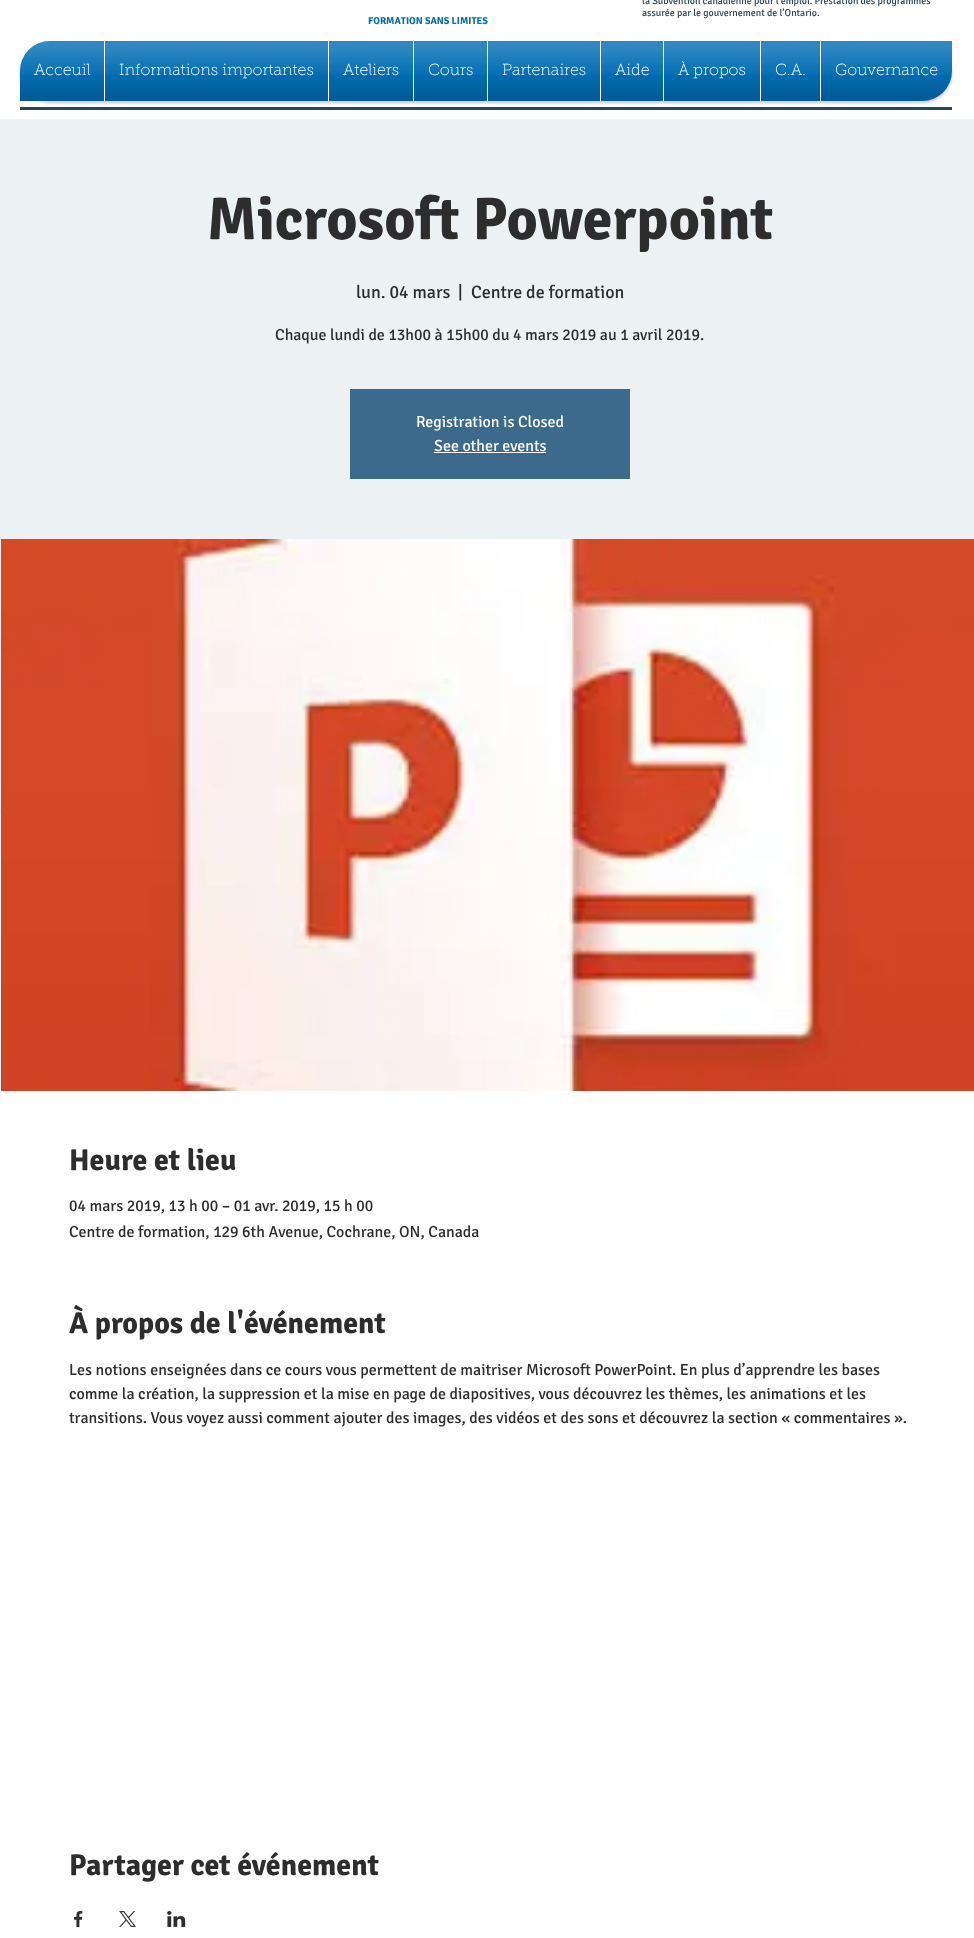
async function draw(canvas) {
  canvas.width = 974;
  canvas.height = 1938;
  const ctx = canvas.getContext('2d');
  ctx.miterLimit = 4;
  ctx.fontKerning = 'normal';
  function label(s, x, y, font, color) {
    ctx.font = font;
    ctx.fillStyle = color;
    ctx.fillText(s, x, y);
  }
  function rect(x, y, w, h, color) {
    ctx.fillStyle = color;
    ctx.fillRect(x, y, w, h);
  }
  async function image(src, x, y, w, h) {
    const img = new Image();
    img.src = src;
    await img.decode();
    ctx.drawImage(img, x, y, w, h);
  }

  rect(0, 0, 974, 1938, '#fff');
  label('la Subvention canadienne pour l’emploi. Prestation des programmes', 642, 4, '10px Signika', '#28475d');
  label('assurée par le gouvernement de l’Ontario.', 642, 16, '10px Signika', '#28475d');
  label('FORMATION SANS LIMITES', 368, 24, 'bold 10px Signika', '#026eb4');
  ctx.fillStyle = '#a29e9e99';
  ctx.filter = 'blur(1.5px)';
  ctx.beginPath();
  ctx.roundRect(20, 43, 932, 60, 30);
  ctx.fill();
  ctx.filter = 'none';
  await image('assets/img1.png', 20, 41, 932, 31);
  await image('assets/img2.png', 922, 78, 29, 23);
  ctx.fillStyle = '#026eb4';
  ctx.beginPath();
  ctx.roundRect(20, 41, 84, 60, [30, 0, 0, 0]);
  ctx.fill();
  label('Acceuil', 34, 75, '100 16px "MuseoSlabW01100"', '#fff');
  await image('assets/img3.png', 20, 41, 84, 33);
  await image('assets/img4.png', 20, 75, 84, 26);
  rect(105, 41, 223, 60, '#026eb4');
  rect(104, 41, 1, 60, '#fff');
  label('Informations importantes', 119, 75, '100 16px "MuseoSlabW01100"', '#fff');
  await image('assets/img5.png', 105, 41, 223, 33);
  await image('assets/img6.png', 105, 75, 223, 26);
  rect(329, 41, 84, 60, '#026eb4');
  rect(328, 41, 1, 60, '#fff');
  label('Ateliers', 343, 75, '100 16px "MuseoSlabW01100"', '#fff');
  await image('assets/img7.png', 329, 41, 84, 33);
  await image('assets/img8.png', 329, 75, 84, 26);
  rect(414, 41, 73, 60, '#026eb4');
  rect(413, 41, 1, 60, '#fff');
  label('Cours', 428, 75, '100 16px "MuseoSlabW01100"', '#fff');
  await image('assets/img9.png', 414, 41, 73, 33);
  await image('assets/img10.png', 414, 75, 73, 26);
  rect(488, 41, 112, 60, '#026eb4');
  rect(487, 41, 1, 60, '#fff');
  label('Partenaires', 502, 75, '100 16px "MuseoSlabW01100"', '#fff');
  await image('assets/img11.png', 488, 41, 112, 33);
  await image('assets/img12.png', 488, 75, 112, 26);
  rect(601, 41, 62, 60, '#026eb4');
  rect(600, 41, 1, 60, '#fff');
  label('Aide', 615, 75, '100 16px "MuseoSlabW01100"', '#fff');
  await image('assets/img13.png', 601, 41, 62, 33);
  await image('assets/img14.png', 601, 75, 62, 26);
  rect(664, 41, 96, 60, '#026eb4');
  rect(663, 41, 1, 60, '#fff');
  label('À propos', 678, 75, '100 16px "MuseoSlabW01100"', '#fff');
  await image('assets/img15.png', 664, 41, 96, 33);
  await image('assets/img16.png', 664, 75, 96, 26);
  rect(761, 41, 59, 60, '#026eb4');
  rect(760, 41, 1, 60, '#fff');
  label('C.A.', 775, 75, '100 16px "MuseoSlabW01100"', '#fff');
  await image('assets/img17.png', 761, 41, 59, 33);
  await image('assets/img18.png', 761, 75, 59, 26);
  ctx.fillStyle = '#026eb4';
  ctx.beginPath();
  ctx.roundRect(820, 41, 132, 60, [0, 0, 30, 0]);
  ctx.fill();
  rect(820, 41, 1, 60, '#fff');
  label('Gouvernance', 835, 75, '100 16px "MuseoSlabW01100"', '#fff');
  await image('assets/img19.png', 821, 41, 131, 33);
  await image('assets/img20.png', 821, 75, 130, 26);
  rect(20, 107, 932, 3, '#28475d');
  rect(0, 119, 974, 696, '#ecf1f4');
  label('Microsoft Powerpoint', 207, 239, 'bold 60px Signika', '#2d2d2d');
  label('lun. 04 mars', 356, 298, '18px Signika', '#2d2d2d');
  label('|', 458, 298, '18px Signika', '#2d2d2d');
  label('Centre de formation', 471, 298, '18px Signika', '#2d2d2d');
  label('Chaque lundi de 13h00 à 15h00 du 4 mars 2019 au 1 avril 2019.', 275, 340, '16px Signika', '#2d2d2d');
  rect(350, 389, 280, 90, '#3c6a8c');
  label('Registration is Closed', 416, 427, '16px Signika', '#fff');
  label('See other events', 434, 451, '16px Signika', '#fff');
  rect(434, 452, 112, 1, '#fff');
  await image('assets/img21.png', 1, 539, 973, 552);
  label('Heure et lieu', 69, 1170, 'bold 30px Signika', '#2d2d2d');
  label('04 mars 2019, 13 h 00 – 01 avr. 2019, 15 h 00', 69, 1211, '16px Signika', '#2d2d2d');
  label('Centre de formation, 129 6th Avenue, Cochrane, ON, Canada', 69, 1237, '16px Signika', '#2d2d2d');
  label('À propos de l\'événement', 69, 1333, 'bold 30px Signika', '#2d2d2d');
  label('Les notions enseignées dans ce cours vous permettent de maitriser Microsoft PowerPoint. En plus d’apprendre les bases', 69, 1375, '16px Signika', '#2d2d2d');
  label('comme la création, la suppression et la mise en page de diapositives, vous découvrez les thèmes, les animations et les', 69, 1399, '16px Signika', '#2d2d2d');
  label('transitions. Vous voyez aussi comment ajouter des images, des vidéos et des sons et découvrez la section « commentaires ».', 69, 1423, '16px Signika', '#2d2d2d');
  label('Partager cet événement', 69, 1875, 'bold 30px Signika', '#2d2d2d');
  await image('assets/img22.png', 74, 1911, 9, 16);
  await image('assets/img23.png', 119, 1911, 17, 16);
  await image('assets/img24.png', 167, 1911, 19, 16);
}

draw(document.querySelector('canvas'));
